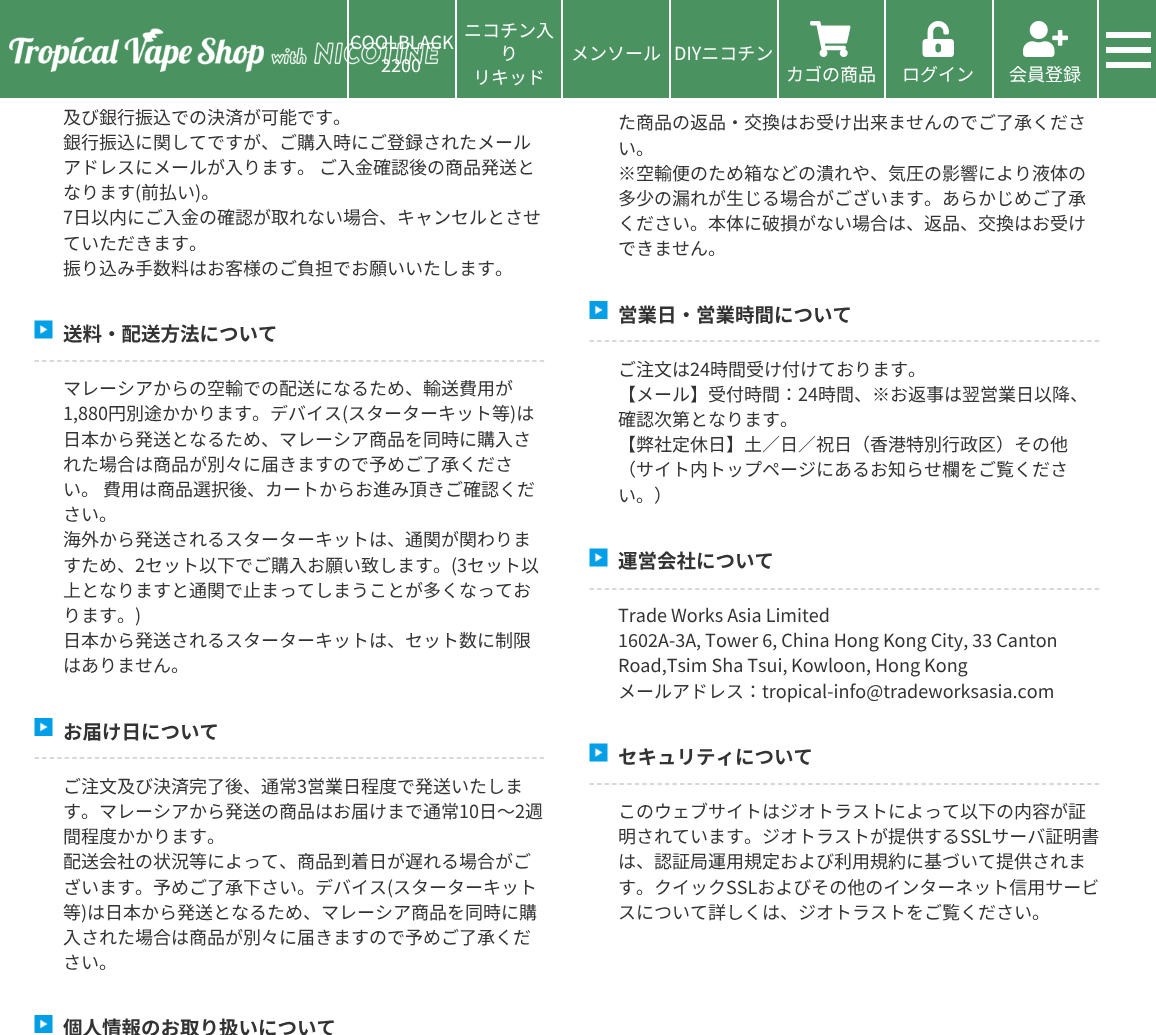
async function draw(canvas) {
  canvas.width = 1156;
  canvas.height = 1035;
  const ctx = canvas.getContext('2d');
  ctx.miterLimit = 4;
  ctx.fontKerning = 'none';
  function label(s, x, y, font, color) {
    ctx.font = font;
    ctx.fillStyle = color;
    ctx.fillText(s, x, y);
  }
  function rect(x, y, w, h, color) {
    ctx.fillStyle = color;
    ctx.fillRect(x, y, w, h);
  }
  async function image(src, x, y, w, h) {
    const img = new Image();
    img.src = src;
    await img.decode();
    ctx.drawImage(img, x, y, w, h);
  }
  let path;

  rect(0, 0, 1156, 1035, '#fff');
  rect(0, 0, 1156, 98, '#4a9360');
  await image('assets/img1.png', 9, 28, 432, 44);
  rect(347, 0, 2, 98, '#fff');
  label('COOLBLACK', 350, 49, '18px Noto Sans JP', '#fff');
  label('2200', 381, 72, '18px Noto Sans JP', '#fff');
  rect(455, 0, 2, 98, '#fff');
  label('ニコチン入', 464, 37, '18px Noto Sans JP', '#fff');
  label('り', 500, 60, '18px Noto Sans JP', '#fff');
  label('リキッド', 473, 84, '18px Noto Sans JP', '#fff');
  rect(561, 0, 2, 98, '#fff');
  label('メンソール', 571, 60, '18px Noto Sans JP', '#fff');
  rect(669, 0, 2, 98, '#fff');
  label('DIYニコチン', 674, 60, '18px Noto Sans JP', '#fff');
  rect(777, 0, 2, 98, '#fff');
  await image('assets/img2.png', 810, 21, 41, 36);
  label('カゴの商品', 786, 81, '18px Noto Sans JP', '#fff');
  rect(884, 0, 2, 98, '#fff');
  await image('assets/img3.png', 922, 21, 32, 36);
  label('ログイン', 902, 81, '18px Noto Sans JP', '#fff');
  rect(1097, 0, 2, 98, '#fff');
  rect(992, 0, 2, 98, '#fff');
  await image('assets/img4.png', 1023, 21, 45, 36);
  label('会員登録', 1009, 81, '18px Noto Sans JP', '#fff');
  rect(1106, 32, 45, 6, '#fff');
  rect(1106, 47, 45, 6, '#fff');
  rect(1106, 62, 45, 6, '#fff');
  label('及び銀行振込での決済が可能です。', 63, 124, '18px Noto Sans JP', '#333');
  label('銀行振込に関してですが、ご購入時にご登録されたメール', 63, 149, '18px Noto Sans JP', '#333');
  label('アドレスにメールが入ります。 ご入金確認後の商品発送と', 63, 174, '18px Noto Sans JP', '#333');
  label('なります(前払い)。', 63, 199, '18px Noto Sans JP', '#333');
  label('7日以内にご入金の確認が取れない場合、キャンセルとさせ', 63, 224, '18px Noto Sans JP', '#333');
  label('ていただきます。', 63, 250, '18px Noto Sans JP', '#333');
  label('振り込み手数料はお客様のご負担でお願いいたします。', 63, 275, '18px Noto Sans JP', '#333');
  await image('assets/img5.png', 34, 320, 19, 19);
  path = new Path2D('M34.5 361H544.5');
  ctx.strokeStyle = '#ccc';
  ctx.lineWidth = 1.5;
  ctx.setLineDash([4.5, 3.04]);
  ctx.stroke(path);
  label('送料・配送方法について', 63, 341, 'bold 19.5px Noto Sans JP', '#333');
  label('マレーシアからの空輸での配送になるため、輸送費用が', 63, 395, '18px Noto Sans JP', '#333');
  label('1,880円別途かかります。デバイス(スターターキット等)は', 63, 420, '18px Noto Sans JP', '#333');
  label('日本から発送となるため、マレーシア商品を同時に購入さ', 63, 446, '18px Noto Sans JP', '#333');
  label('れた場合は商品が別々に届きますので予めご了承くださ', 63, 471, '18px Noto Sans JP', '#333');
  label('い。 費用は商品選択後、カートからお進み頂きご確認くだ', 63, 496, '18px Noto Sans JP', '#333');
  label('さい。', 63, 521, '18px Noto Sans JP', '#333');
  label('海外から発送されるスターターキットは、通関が関わりま', 63, 546, '18px Noto Sans JP', '#333');
  label('すため、2セット以下でご購入お願い致します。(3セット以', 63, 572, '18px Noto Sans JP', '#333');
  label('上となりますと通関で止まってしまうことが多くなってお', 63, 597, '18px Noto Sans JP', '#333');
  label('ります。)', 63, 622, '18px Noto Sans JP', '#333');
  label('日本から発送されるスターターキットは、セット数に制限', 63, 647, '18px Noto Sans JP', '#333');
  label('はありません。', 63, 672, '18px Noto Sans JP', '#333');
  await image('assets/img6.png', 34, 718, 19, 18);
  path = new Path2D('M34.5 758H544.5');
  ctx.stroke(path);
  label('お届け日について', 63, 739, 'bold 19.5px Noto Sans JP', '#333');
  label('ご注文及び決済完了後、通常3営業日程度で発送いたしま', 63, 793, '18px Noto Sans JP', '#333');
  label('す。マレーシアから発送の商品はお届けまで通常10日～2週', 63, 818, '18px Noto Sans JP', '#333');
  label('間程度かかります。', 63, 843, '18px Noto Sans JP', '#333');
  label('配送会社の状況等によって、商品到着日が遅れる場合がご', 63, 868, '18px Noto Sans JP', '#333');
  label('ざいます。予めご了承下さい。デバイス(スターターキット', 63, 894, '18px Noto Sans JP', '#333');
  label('等)は日本から発送となるため、マレーシア商品を同時に購', 63, 919, '18px Noto Sans JP', '#333');
  label('入された場合は商品が別々に届きますので予めご了承くだ', 63, 944, '18px Noto Sans JP', '#333');
  label('さい。', 63, 969, '18px Noto Sans JP', '#333');
  await image('assets/img6.png', 34, 1015, 19, 18);
  label('個人情報のお取り扱いについて', 63, 1035, 'bold 19.5px Noto Sans JP', '#333');
  label('た商品の返品・交換はお受け出来ませんのでご了承くださ', 618, 129, '18px Noto Sans JP', '#333');
  label('い。', 618, 155, '18px Noto Sans JP', '#333');
  label('※空輸便のため箱などの潰れや、気圧の影響により液体の', 618, 180, '18px Noto Sans JP', '#333');
  label('多少の漏れが生じる場合がございます。あらかじめご了承', 618, 205, '18px Noto Sans JP', '#333');
  label('ください。本体に破損がない場合は、返品、交換はお受け', 618, 230, '18px Noto Sans JP', '#333');
  label('できません。', 618, 255, '18px Noto Sans JP', '#333');
  await image('assets/img7.png', 589, 301, 19, 18);
  path = new Path2D('M589.5 341H1099.5');
  ctx.stroke(path);
  label('営業日・営業時間について', 618, 322, 'bold 19.5px Noto Sans JP', '#333');
  label('ご注文は24時間受け付けております。', 618, 376, '18px Noto Sans JP', '#333');
  label('【メール】受付時間：24時間、※お返事は翌営業日以降、', 618, 401, '18px Noto Sans JP', '#333');
  label('確認次第となります。', 618, 426, '18px Noto Sans JP', '#333');
  label('【弊社定休日】土／日／祝日（香港特別行政区）その他', 618, 451, '18px Noto Sans JP', '#333');
  label('（サイト内トップページにあるお知らせ欄をご覧くださ', 618, 476, '18px Noto Sans JP', '#333');
  label('い。', 618, 502, '18px Noto Sans JP', '#333');
  label('）', 654, 502, '18px Noto Sans JP', '#333');
  await image('assets/img8.png', 589, 548, 19, 19);
  path = new Path2D('M589.5 589H1099.5');
  ctx.stroke(path);
  label('運営会社について', 618, 568, 'bold 19.5px Noto Sans JP', '#333');
  label('Trade Works Asia Limited', 618, 622, '18px Noto Sans JP', '#333');
  label('1602A-3A, Tower 6, China Hong Kong City, 33 Canton', 618, 647, '18px Noto Sans JP', '#333');
  label('Road,Tsim Sha Tsui,', 618, 672, '18px Noto Sans JP', '#333');
  label('Kowloon, Hong Kong', 791, 672, '18px Noto Sans JP', '#333');
  label('メールアドレス：tropical-info@tradeworksasia.com', 618, 698, '18px Noto Sans JP', '#333');
  await image('assets/img8.png', 589, 743, 19, 19);
  path = new Path2D('M589.5 784H1099.5');
  ctx.stroke(path);
  label('セキュリティについて', 618, 764, 'bold 19.5px Noto Sans JP', '#333');
  label('このウェブサイトはジオトラストによって以下の内容が証', 618, 818, '18px Noto Sans JP', '#333');
  label('明されています。ジオトラストが提供するSSLサーバ証明書', 618, 843, '18px Noto Sans JP', '#333');
  label('は、認証局運用規定および利用規約に基づいて提供されま', 618, 868, '18px Noto Sans JP', '#333');
  label('す。クイックSSLおよびその他のインターネット信用サービ', 618, 894, '18px Noto Sans JP', '#333');
  label('スについて詳しくは、ジオトラストをご覧ください。', 618, 919, '18px Noto Sans JP', '#333');
}

draw(document.querySelector('canvas'));
